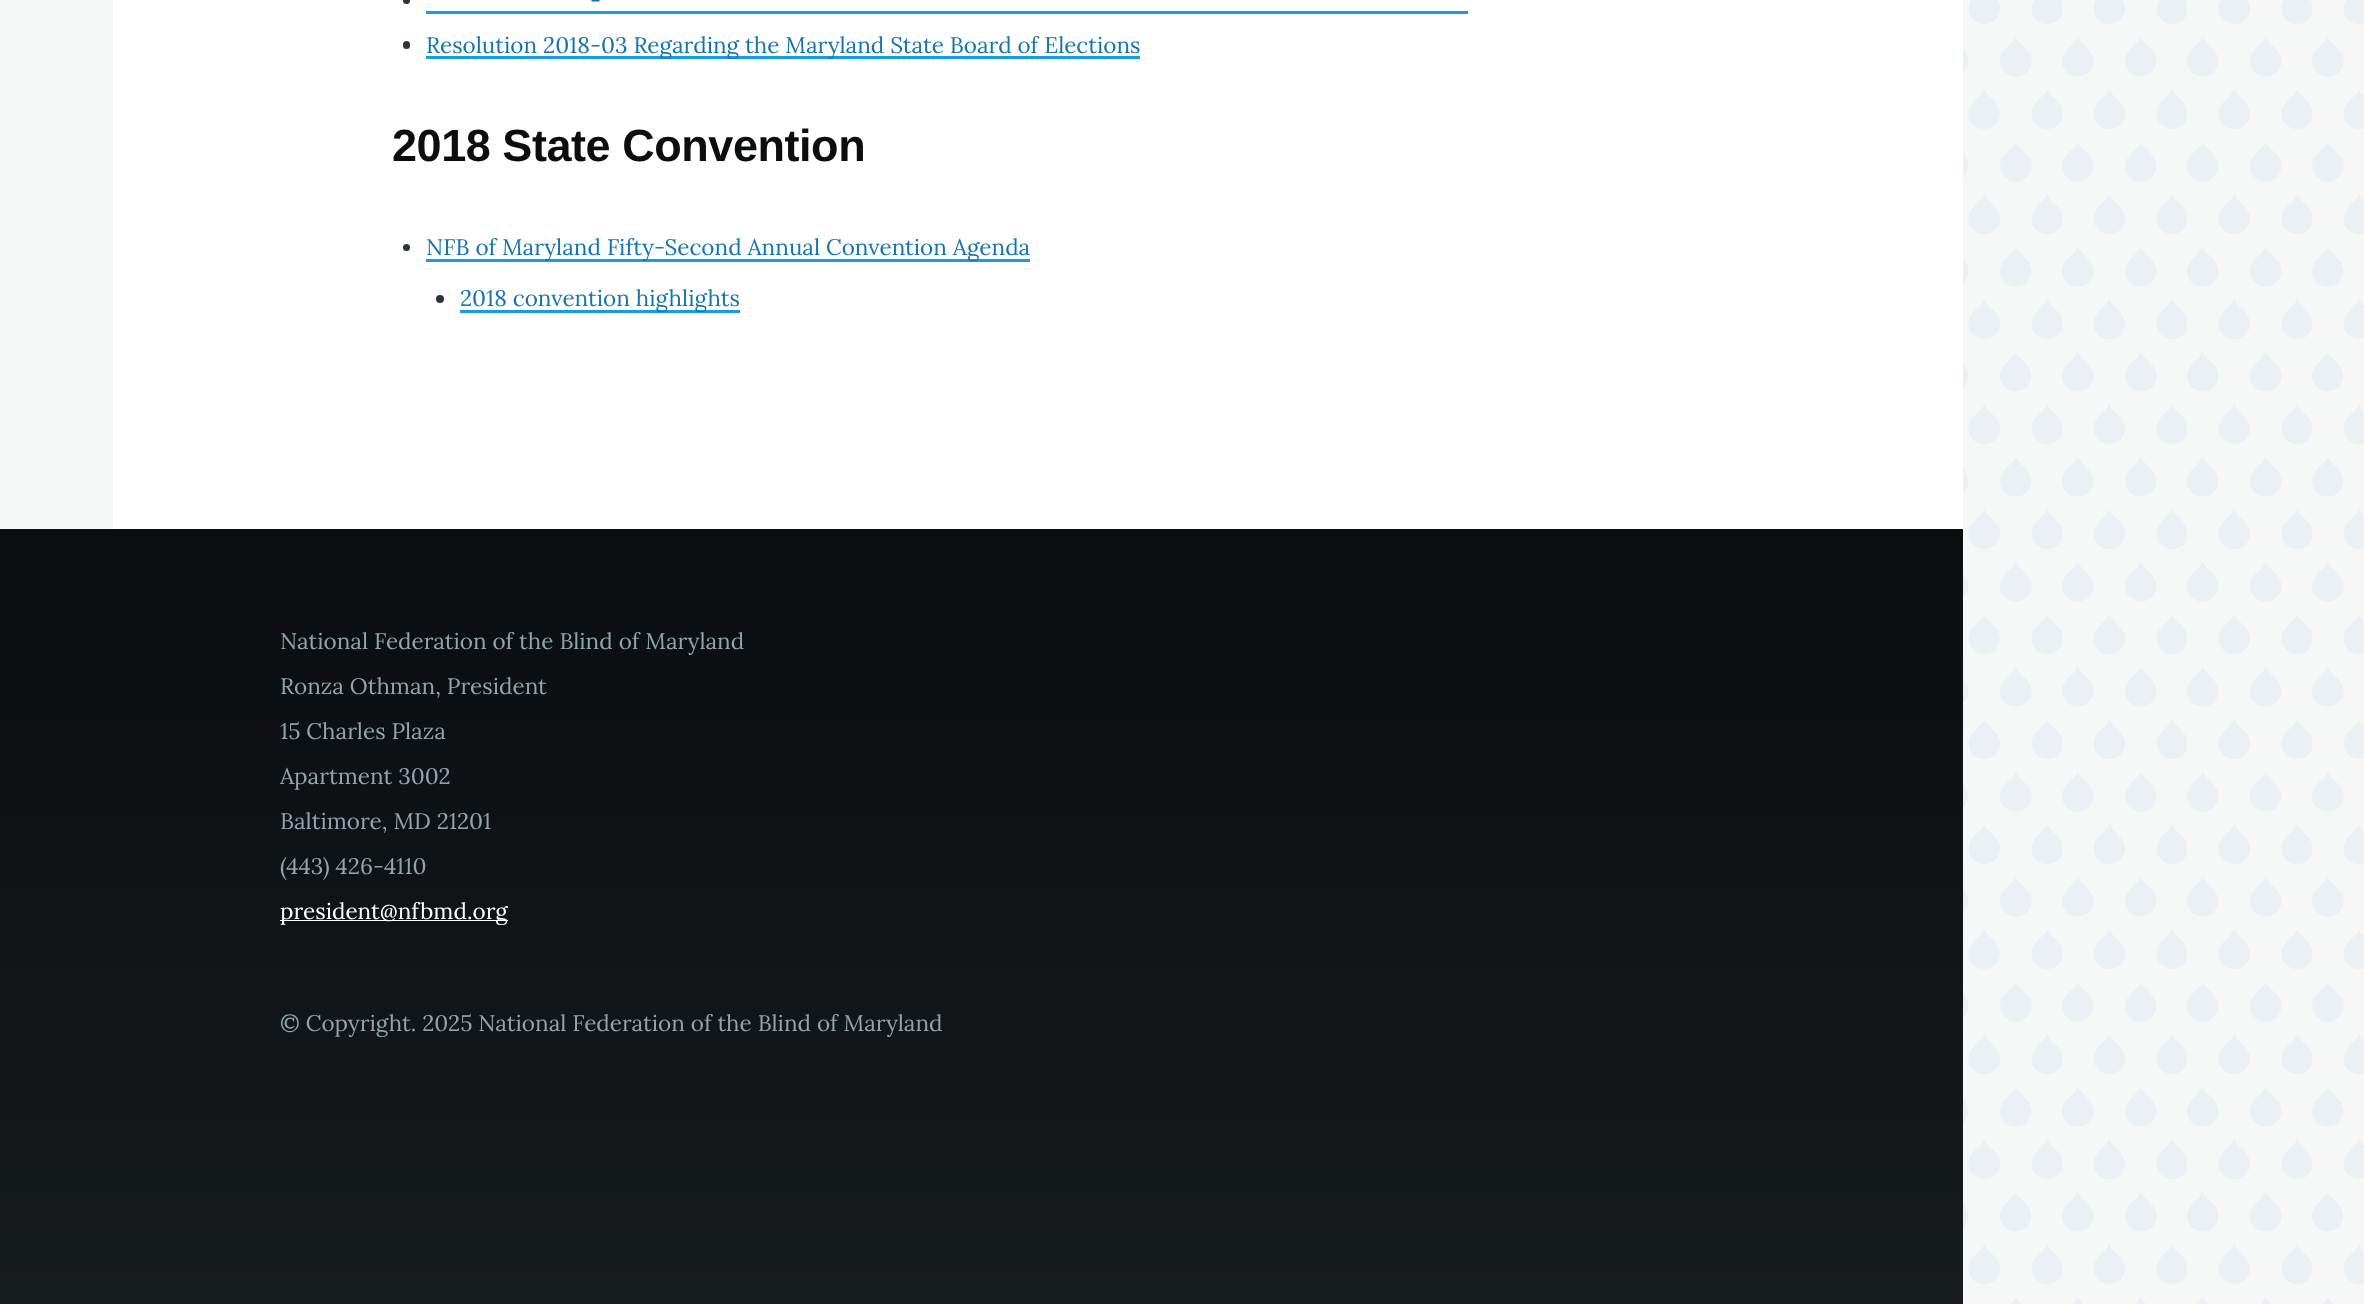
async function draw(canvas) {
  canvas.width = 2364;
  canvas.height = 1304;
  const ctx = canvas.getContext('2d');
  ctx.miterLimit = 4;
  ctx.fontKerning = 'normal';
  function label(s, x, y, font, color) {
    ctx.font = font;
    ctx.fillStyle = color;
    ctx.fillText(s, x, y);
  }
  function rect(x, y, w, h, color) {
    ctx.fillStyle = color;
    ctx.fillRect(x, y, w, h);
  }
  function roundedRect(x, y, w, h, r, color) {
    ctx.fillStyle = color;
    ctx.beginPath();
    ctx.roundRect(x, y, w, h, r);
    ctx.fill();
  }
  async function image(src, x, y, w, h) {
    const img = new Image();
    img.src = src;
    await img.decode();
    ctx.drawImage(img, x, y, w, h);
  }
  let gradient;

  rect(0, 0, 2364, 1304, '#f6f8f8');
  await image('assets/img1.png', 1963, 0, 401, 1304);
  rect(113, 0, 1850, 529, '#fff');
  roundedRect(403, -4, 7, 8, 3.5, '#2b353b');
  label('-', 590, 8, '22.5px Lora', '#1475ad');
  rect(426, 11, 1042, 3, '#1b9ae4');
  roundedRect(403, 41, 7, 8, 3.5, '#2b353b');
  rect(426, 56, 714, 3, '#1b9ae4');
  label('Resolution 2018-03 Regarding the Maryland State Board of Elections', 426, 53, '22.5px Lora', '#1475ad');
  ctx.letterSpacing = '-0.45px';
  label('2018 State Convention', 392, 161, 'bold 45px Liberation Sans', '#0b0d0f');
  ctx.fillStyle = '#2b353b';
  ctx.beginPath();
  ctx.arc(406.5, 247.5, 3.5, 0, 2 * Math.PI);
  ctx.fill();
  rect(426, 259, 604, 3, '#1b9ae4');
  ctx.letterSpacing = '0px';
  label('NFB of Maryland Fifty-Second Annual Convention Agenda', 426, 255, '22.5px Lora', '#1475ad');
  ctx.fillStyle = '#2b353b';
  ctx.beginPath();
  ctx.arc(440, 299, 4, 0, 2 * Math.PI);
  ctx.fill();
  rect(460, 310, 280, 3, '#1b9ae4');
  label('2018 convention highlights', 460, 306, '22.5px Lora', '#1475ad');
  gradient = ctx.createLinearGradient(981, 529, 981, 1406);
  gradient.addColorStop(0, '#0b0d0f');
  gradient.addColorStop(1, '#181d20');
  ctx.fillStyle = gradient;
  ctx.fillRect(0, 529, 1963, 775);
  label('National Federation of the Blind of Maryland', 280, 649, '22.5px Lora', '#92a5af');
  label('Ronza Othman, President', 280, 694, '22.5px Lora', '#92a5af');
  label('15 Charles Plaza', 280, 739, '22.5px Lora', '#92a5af');
  label('Apartment 3002', 280, 784, '22.5px Lora', '#92a5af');
  label('Baltimore, MD 21201', 280, 829, '22.5px Lora', '#92a5af');
  label('(443) 426-4110', 280, 874, '22.5px Lora', '#92a5af');
  rect(280, 920, 228, 1, '#fff');
  label('president@nfbmd.org', 280, 919, '22.5px Lora', '#fff');
  label('© Copyright. 2025 National Federation of the Blind of Maryland', 280, 1031, '22.5px Lora', '#92a5af');
}

draw(document.querySelector('canvas'));
